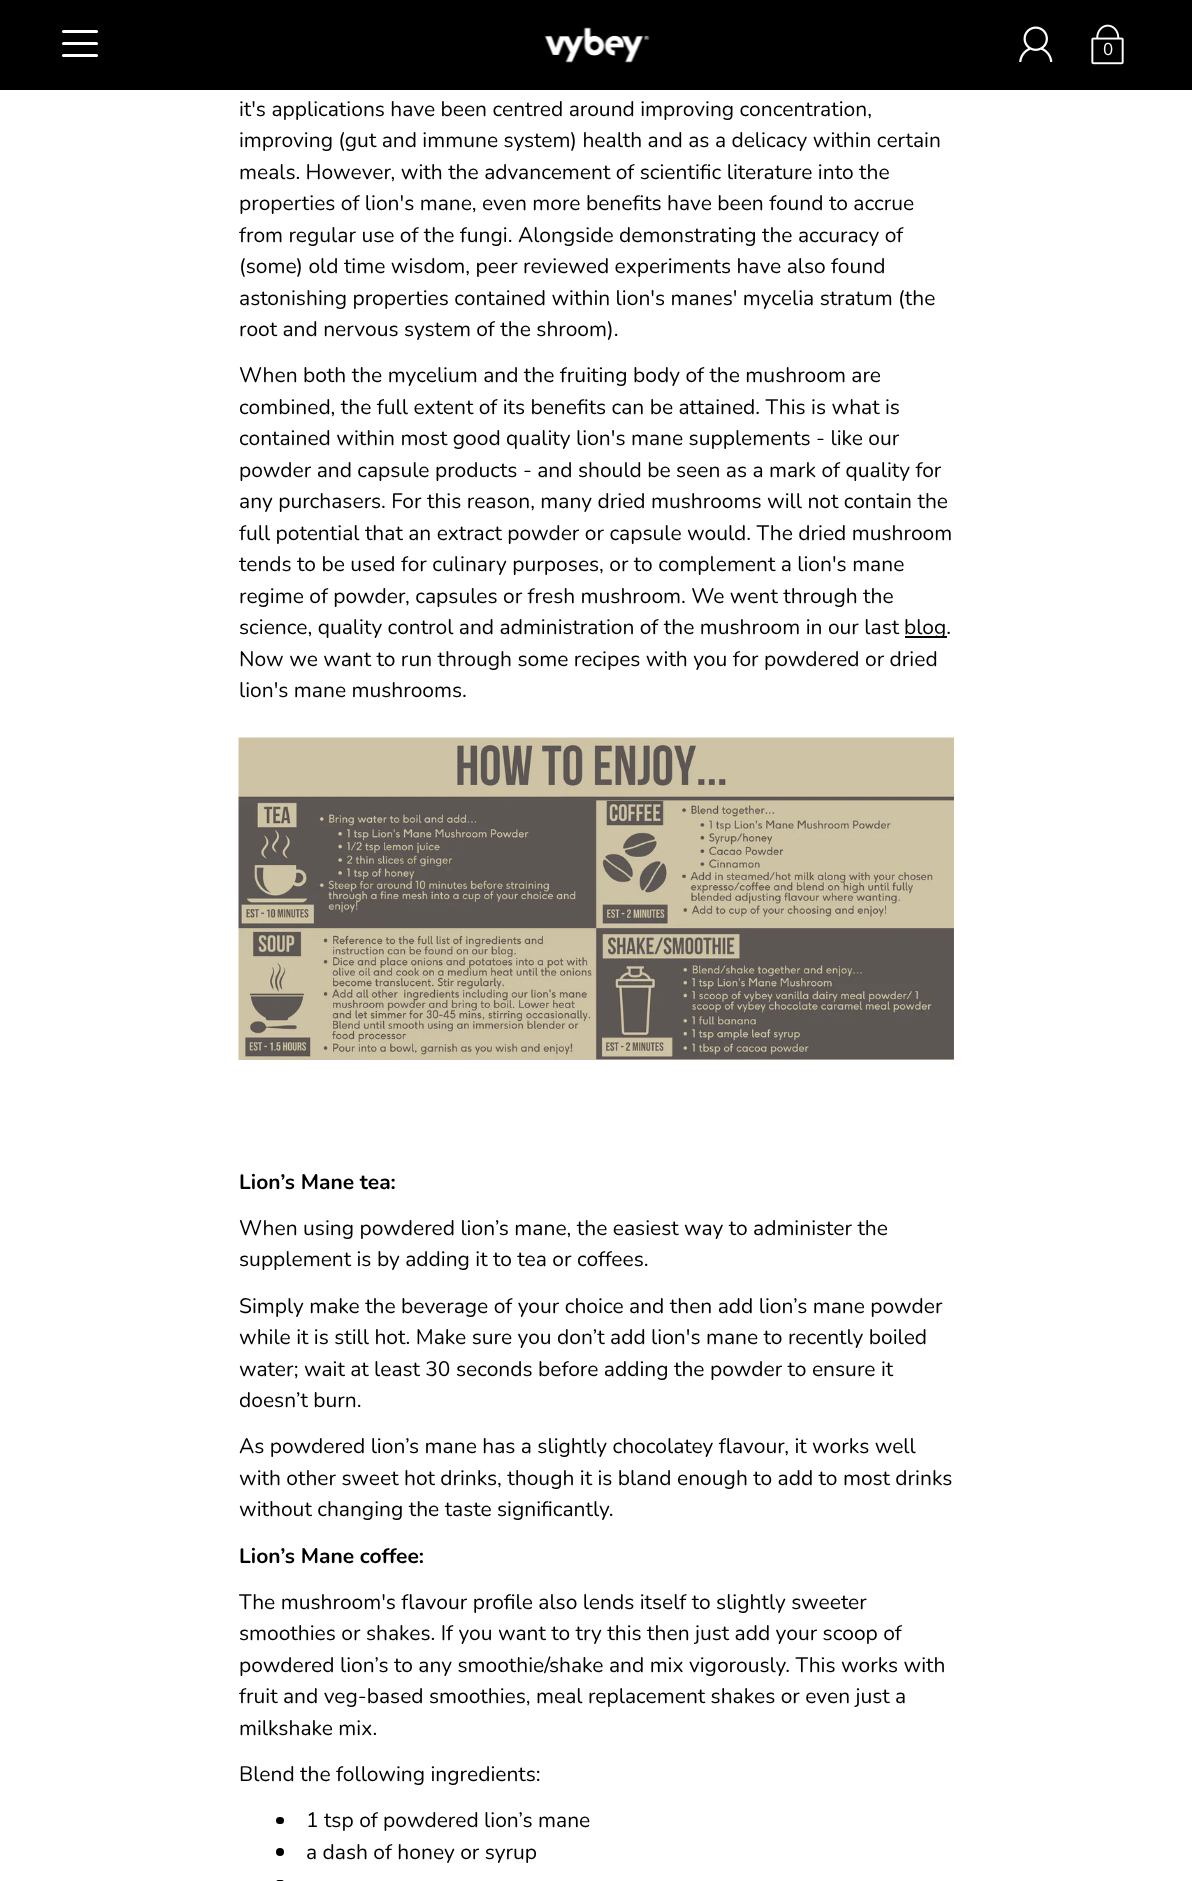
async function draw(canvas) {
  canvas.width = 1192;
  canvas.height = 1881;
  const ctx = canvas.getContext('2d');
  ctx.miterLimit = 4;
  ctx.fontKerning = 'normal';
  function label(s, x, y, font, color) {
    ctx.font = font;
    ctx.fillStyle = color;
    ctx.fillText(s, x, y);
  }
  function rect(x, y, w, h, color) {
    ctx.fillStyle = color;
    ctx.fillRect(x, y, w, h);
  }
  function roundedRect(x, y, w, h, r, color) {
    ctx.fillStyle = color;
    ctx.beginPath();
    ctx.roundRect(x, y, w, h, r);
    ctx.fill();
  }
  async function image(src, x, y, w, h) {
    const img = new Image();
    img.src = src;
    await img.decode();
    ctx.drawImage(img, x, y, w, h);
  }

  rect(0, 0, 1192, 1881, '#fff');
  rect(0, 0, 1192, 90, '#000');
  await image('assets/img1.png', 544, 27, 106, 36);
  roundedRect(62, 42, 36, 3, 1.5, '#fff');
  roundedRect(62, 30, 36, 3, 1.5, '#fff');
  roundedRect(62, 54, 36, 3, 1.5, '#fff');
  await image('assets/img2.png', 1019, 26, 34, 36);
  await image('assets/img3.png', 1091, 24, 33, 41);
  label('0', 1103, 55, '17px Nunito', '#fff');
  label('it\'s applications have been centred around improving concentration,', 239, 116, '21px Nunito', '#000');
  label('improving (gut and immune system) health and as a delicacy within certain', 239, 147, '21px Nunito', '#000');
  label('meals. However, with the advancement of scientific literature into the', 239, 179, '21px Nunito', '#000');
  label('properties of lion\'s mane, even more benefits have been found to accrue', 239, 210, '21px Nunito', '#000');
  label('from regular use of the fungi. Alongside demonstrating the accuracy of', 239, 242, '21px Nunito', '#000');
  label('(some) old time wisdom, peer reviewed experiments have also found', 239, 273, '21px Nunito', '#000');
  label('astonishing properties contained within lion\'s manes\' mycelia stratum (the', 239, 305, '21px Nunito', '#000');
  label('root and nervous system of the shroom).', 239, 336, '21px Nunito', '#000');
  label('When both the mycelium and the fruiting body of the mushroom are', 239, 382, '21px Nunito', '#000');
  label('combined, the full extent of its benefits can be attained. This is what is', 239, 414, '21px Nunito', '#000');
  label('contained within most good quality lion\'s mane supplements - like our', 239, 445, '21px Nunito', '#000');
  label('powder and capsule products - and should be seen as a mark of quality for', 239, 477, '21px Nunito', '#000');
  label('any purchasers. For this reason, many dried mushrooms will not contain the', 239, 508, '21px Nunito', '#000');
  label('full potential that an extract powder or capsule would. The dried mushroom', 239, 540, '21px Nunito', '#000');
  label('tends to be used for culinary purposes, or to complement a lion\'s mane', 239, 571, '21px Nunito', '#000');
  label('regime of powder, capsules or fresh mushroom. We went through the', 239, 603, '21px Nunito', '#000');
  label('science, quality control and administration of the mushroom in our last', 239, 634, '21px Nunito', '#000');
  rect(905, 636, 42, 2, '#000');
  label('blog.', 904, 634, '21px Nunito', '#000');
  label('Now we want to run through some recipes with you for powdered or dried', 239, 666, '21px Nunito', '#000');
  label('lion\'s mane mushrooms.', 239, 697, '21px Nunito', '#000');
  await image('assets/img4.png', 238, 737, 716, 323);
  label('Lion’s Mane tea:', 239, 1189, 'bold 21px Nunito', '#000');
  label('When using powdered lion’s mane, the easiest way to administer the', 239, 1235, '21px Nunito', '#000');
  label('supplement is by adding it to tea or coffees.', 239, 1266, '21px Nunito', '#000');
  label('Simply make the beverage of your choice and then add lion’s mane powder', 239, 1313, '21px Nunito', '#000');
  label('while it is still hot. Make sure you don’t add lion\'s mane to recently boiled', 239, 1344, '21px Nunito', '#000');
  label('water; wait at least 30 seconds before adding the powder to ensure it', 239, 1376, '21px Nunito', '#000');
  label('doesn’t burn.', 239, 1407, '21px Nunito', '#000');
  label('As powdered lion’s mane has a slightly chocolatey flavour, it works well', 239, 1453, '21px Nunito', '#000');
  label('with other sweet hot drinks, though it is bland enough to add to most drinks', 239, 1485, '21px Nunito', '#000');
  label('without changing the taste significantly.', 239, 1516, '21px Nunito', '#000');
  label('Lion’s Mane coffee:', 239, 1563, 'bold 21px Nunito', '#000');
  label('The mushroom\'s flavour profile also lends itself to slightly sweeter', 239, 1609, '21px Nunito', '#000');
  label('smoothies or shakes. If you want to try this then just add your scoop of', 239, 1640, '21px Nunito', '#000');
  label('powdered lion’s to any smoothie/shake and mix vigorously. This works with', 239, 1672, '21px Nunito', '#000');
  label('fruit and veg-based smoothies, meal replacement shakes or even just a', 239, 1703, '21px Nunito', '#000');
  label('milkshake mix.', 239, 1735, '21px Nunito', '#000');
  label('Blend the following ingredients:', 239, 1781, '21px Nunito', '#000');
  roundedRect(276, 1817, 8, 7, 3.5, '#000');
  label('1 tsp of powdered lion’s mane', 306, 1827, '21px Nunito', '#000');
  ctx.beginPath();
  ctx.arc(280, 1852, 4, 0, 2 * Math.PI);
  ctx.fill();
  label('a dash of honey or syrup', 306, 1859, '21px Nunito', '#000');
  roundedRect(276, 1880, 8, 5, 3.5, '#000');
}

draw(document.querySelector('canvas'));
